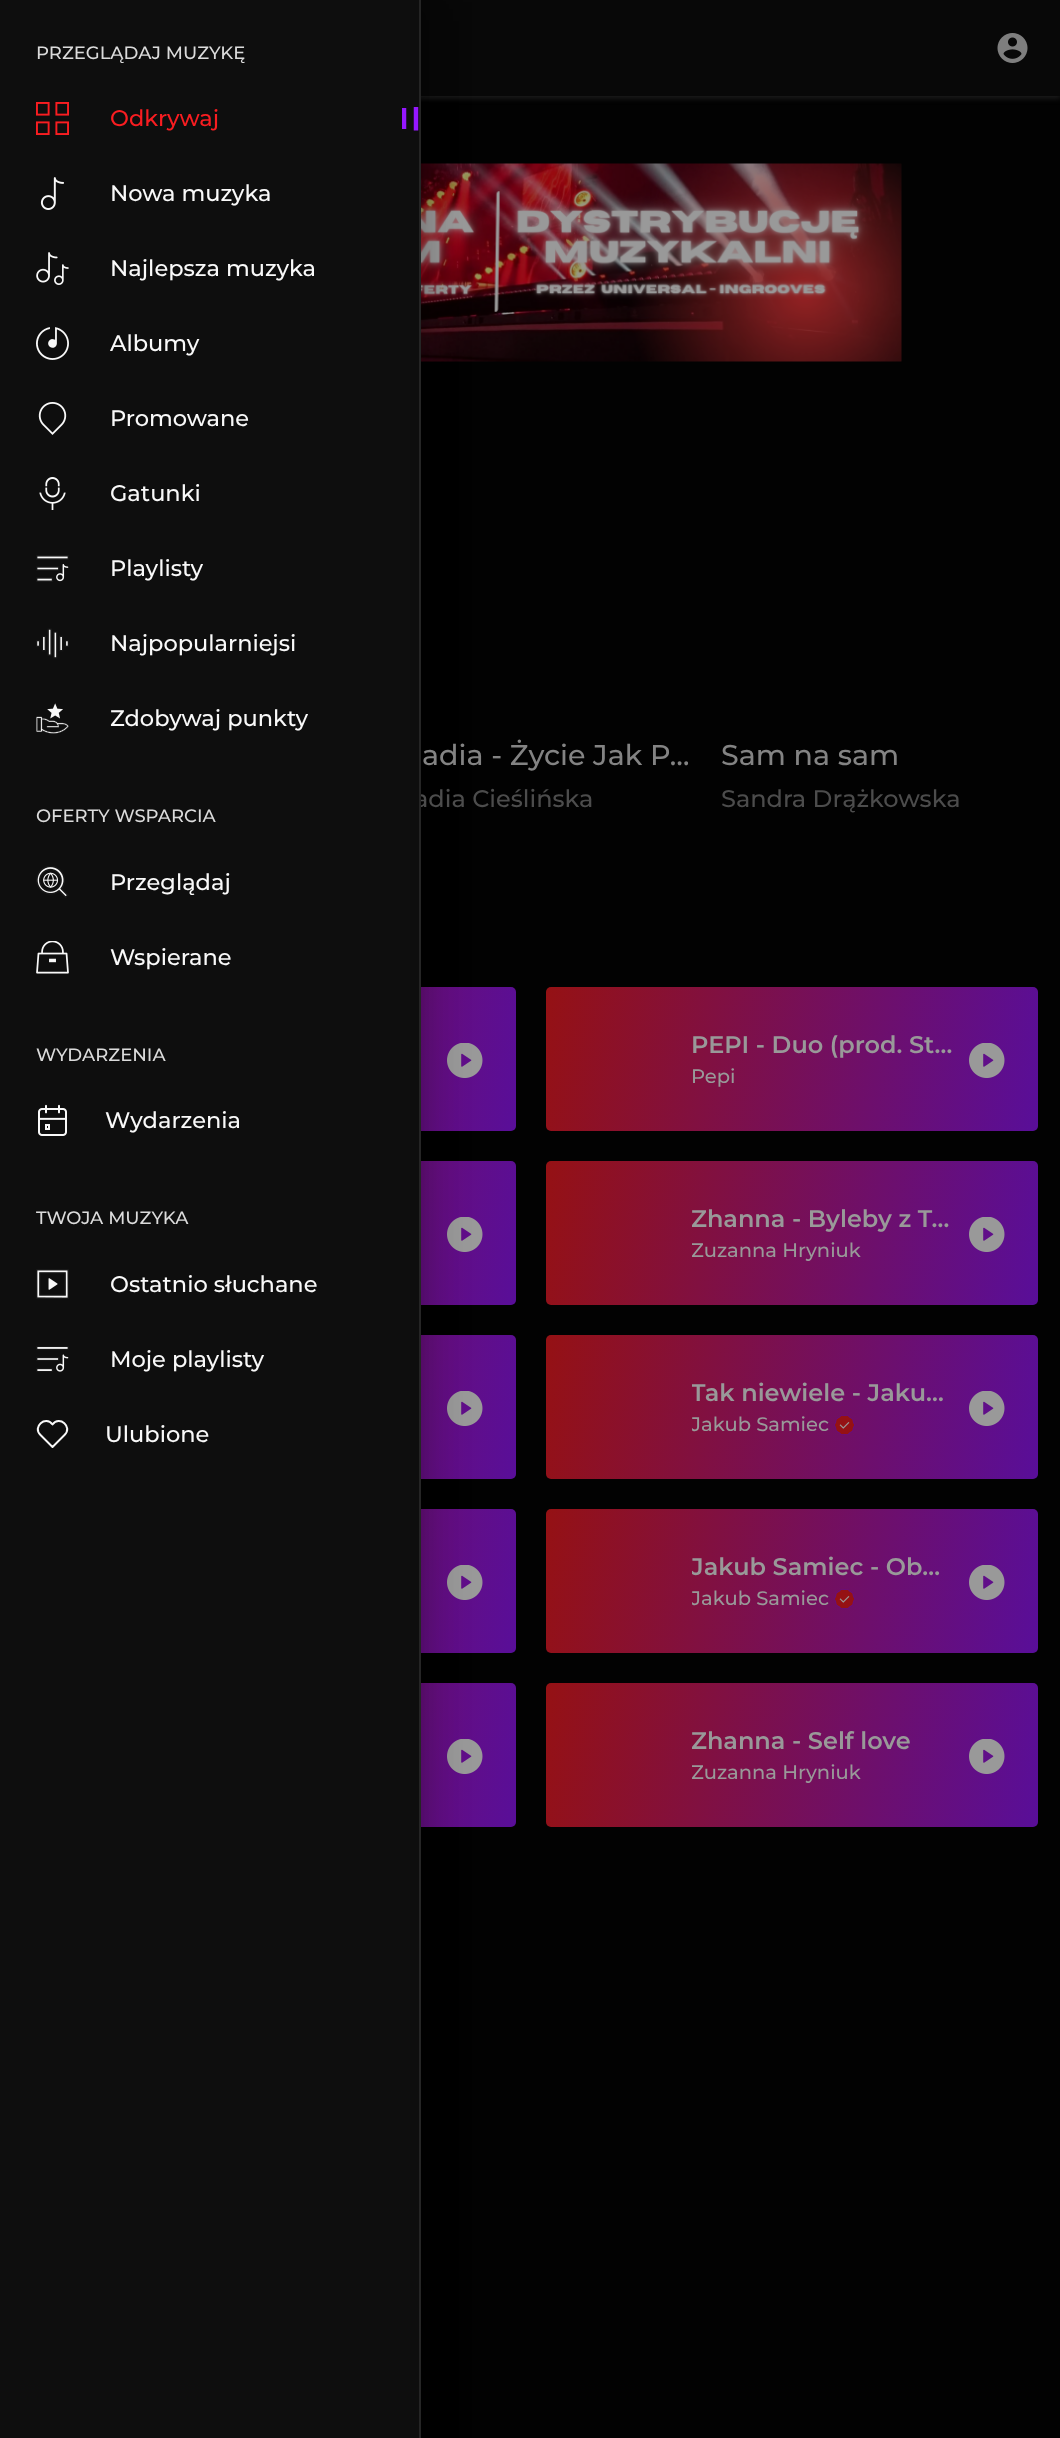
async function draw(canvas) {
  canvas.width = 1060;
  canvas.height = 2438;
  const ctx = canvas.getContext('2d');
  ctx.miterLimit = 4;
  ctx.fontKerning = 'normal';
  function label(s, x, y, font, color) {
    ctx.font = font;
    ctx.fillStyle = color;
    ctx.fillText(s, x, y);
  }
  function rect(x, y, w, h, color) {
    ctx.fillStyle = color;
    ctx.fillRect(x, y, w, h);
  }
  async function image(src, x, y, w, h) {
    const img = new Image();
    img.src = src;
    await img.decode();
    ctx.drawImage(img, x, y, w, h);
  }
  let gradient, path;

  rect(0, 0, 1060, 2438, '#020202');
  ctx.fillStyle = '#99999933';
  ctx.filter = 'blur(3px)';
  ctx.beginPath();
  ctx.rect(0, 2, 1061, 96);
  ctx.fill();
  ctx.filter = 'none';
  rect(421, 0, 639, 96, '#080808');
  await image('assets/img1.png', 997, 33, 31, 30);
  await image('assets/img16.png', 421, 163, 481, 199);
  gradient = ctx.createLinearGradient(17, 1019, 521, 1099);
  gradient.addColorStop(0, '#951114');
  gradient.addColorStop(1, '#590e99');
  ctx.fillStyle = gradient;
  ctx.beginPath();
  ctx.roundRect(23, 987, 493, 144, 5);
  ctx.fill();
  await image('assets/img17.png', 447, 1043, 36, 35);
  gradient = ctx.createLinearGradient(17, 1193, 521, 1273);
  gradient.addColorStop(0, '#951114');
  gradient.addColorStop(1, '#590e99');
  ctx.fillStyle = gradient;
  ctx.beginPath();
  ctx.roundRect(23, 1161, 493, 144, 5);
  ctx.fill();
  await image('assets/img17.png', 447, 1217, 36, 35);
  gradient = ctx.createLinearGradient(17, 1367, 521, 1447);
  gradient.addColorStop(0, '#951114');
  gradient.addColorStop(1, '#590e99');
  ctx.fillStyle = gradient;
  ctx.beginPath();
  ctx.roundRect(23, 1335, 493, 144, 5);
  ctx.fill();
  await image('assets/img17.png', 447, 1391, 36, 35);
  gradient = ctx.createLinearGradient(17, 1541, 521, 1621);
  gradient.addColorStop(0, '#951114');
  gradient.addColorStop(1, '#590e99');
  ctx.fillStyle = gradient;
  ctx.beginPath();
  ctx.roundRect(23, 1509, 493, 144, 5);
  ctx.fill();
  await image('assets/img17.png', 447, 1565, 36, 35);
  gradient = ctx.createLinearGradient(17, 1715, 521, 1795);
  gradient.addColorStop(0, '#951114');
  gradient.addColorStop(1, '#590e99');
  ctx.fillStyle = gradient;
  ctx.beginPath();
  ctx.roundRect(23, 1683, 493, 144, 5);
  ctx.fill();
  await image('assets/img17.png', 447, 1739, 36, 35);
  ctx.fillStyle = '#0000001f';
  ctx.filter = 'blur(22.5px)';
  ctx.beginPath();
  ctx.rect(-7, 2, 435, 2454);
  ctx.fill();
  ctx.filter = 'none';
  ctx.fillStyle = '#00000024';
  ctx.filter = 'blur(18px)';
  ctx.beginPath();
  ctx.rect(-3, 21, 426, 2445);
  ctx.fill();
  ctx.filter = 'none';
  ctx.fillStyle = '#00000033';
  ctx.filter = 'blur(7.5px)';
  ctx.beginPath();
  ctx.rect(8, 20, 405, 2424);
  ctx.fill();
  ctx.filter = 'none';
  label('adia Cieślińska', 414, 807, '500 24px Montserrat', '#4c4c4c');
  rect(0, 0, 419, 2438, '#0e0e0e');
  rect(419, 0, 2, 2438, '#252525');
  label('PRZEGLĄDAJ MUZYKĘ', 36, 59, '500 18px Montserrat', '#dbdbdb');
  await image('assets/img2.png', 36, 102, 33, 33);
  label('Odkrywaj', 110, 126, '500 22.5px Montserrat', '#f91d21');
  ctx.save();
  ctx.beginPath();
  ctx.rect(402, 107, 17, 24);
  ctx.clip();
  path = new Path2D('M416 106.5V130.5M404 108V129');
  ctx.strokeStyle = '#9517ff';
  ctx.lineWidth = 4.5;
  ctx.stroke(path);
  ctx.restore();
  await image('assets/img3.png', 40, 177, 24, 33);
  label('Nowa muzyka', 110, 201, '500 22.5px Montserrat', '#f9f9f9');
  await image('assets/img4.png', 36, 252, 33, 33);
  label('Najlepsza muzyka', 110, 276, '500 22.5px Montserrat', '#f9f9f9');
  await image('assets/img5.png', 36, 327, 33, 33);
  label('Albumy', 110, 351, '500 22.5px Montserrat', '#f9f9f9');
  await image('assets/img6.png', 38, 402, 29, 33);
  label('Promowane', 110, 426, '500 22.5px Montserrat', '#f9f9f9');
  await image('assets/img7.png', 39, 477, 27, 33);
  label('Gatunki', 110, 501, '500 22.5px Montserrat', '#f9f9f9');
  await image('assets/img8.png', 36, 555, 33, 27);
  label('Playlisty', 110, 576, '500 22.5px Montserrat', '#f9f9f9');
  await image('assets/img9.png', 36, 628, 33, 31);
  label('Najpopularniejsi', 110, 651, '500 22.5px Montserrat', '#f9f9f9');
  await image('assets/img10.png', 36, 703, 33, 31);
  label('Zdobywaj punkty', 110, 726, '500 22.5px Montserrat', '#f9f9f9');
  label('OFERTY WSPARCIA', 36, 822, '500 18px Montserrat', '#dbdbdb');
  await image('assets/img11.png', 36, 866, 33, 32);
  label('Przeglądaj', 110, 890, '500 22.5px Montserrat', '#f9f9f9');
  await image('assets/img12.png', 36, 941, 33, 33);
  label('Wspierane', 110, 965, '500 22.5px Montserrat', '#f9f9f9');
  label('WYDARZENIA', 36, 1061, '500 18px Montserrat', '#dbdbdb');
  await image('assets/img13.png', 38, 1104, 29, 32);
  label('Wydarzenia', 105, 1128, '500 22.5px Montserrat', '#f9f9f9');
  label('TWOJA MUZYKA', 36, 1224, '500 18px Montserrat', '#dbdbdb');
  await image('assets/img14.png', 36, 1269, 33, 30);
  label('Ostatnio słuchane', 110, 1292, '500 22.5px Montserrat', '#f9f9f9');
  await image('assets/img15.png', 36, 1346, 33, 26);
  label('Moje playlisty', 110, 1367, '500 22.5px Montserrat', '#f9f9f9');
  path = new Path2D('M64.5 1435L52.5 1447L40.5 1435M40.5 1435C32 1427 45.5 1415 52.5 1424.5C59.5 1415 73 1427 64.5 1435');
  ctx.strokeStyle = '#f9f9f9';
  ctx.lineWidth = 2;
  ctx.lineCap = 'round';
  ctx.lineJoin = 'round';
  ctx.stroke(path);
  label('Ulubione', 105, 1442, '500 22.5px Montserrat', '#f9f9f9');
  label('adia - Życie Jak P…', 422, 765, '500 28.5px Montserrat', '#838383');
  label('Sam na sam', 721, 765, '500 28.5px Montserrat', '#838383');
  label('Sandra Drążkowska', 721, 807, '500 24px Montserrat', '#4c4c4c');
  gradient = ctx.createLinearGradient(541, 1019, 1043, 1099);
  gradient.addColorStop(0, '#951114');
  gradient.addColorStop(1, '#590e99');
  ctx.fillStyle = gradient;
  ctx.beginPath();
  ctx.roundRect(546, 987, 492, 144, 5);
  ctx.fill();
  label('PEPI - Duo (prod. St…', 691, 1053, '600 24px Montserrat', '#999');
  label('Pepi', 691, 1083, '500 19.5px Montserrat', '#999');
  await image('assets/img18.png', 969, 1043, 36, 35);
  gradient = ctx.createLinearGradient(541, 1193, 1043, 1273);
  gradient.addColorStop(0, '#951114');
  gradient.addColorStop(1, '#590e99');
  ctx.fillStyle = gradient;
  ctx.beginPath();
  ctx.roundRect(546, 1161, 492, 144, 5);
  ctx.fill();
  ctx.save();
  ctx.beginPath();
  ctx.rect(692, 1205, 262, 28);
  ctx.clip();
  label('Zhanna - Byleby z T…', 691, 1227, '600 24px Montserrat', '#999');
  ctx.restore();
  ctx.save();
  ctx.beginPath();
  ctx.rect(692, 1238, 262, 24);
  ctx.clip();
  label('Zuzanna Hryniuk', 691, 1257, '500 19.5px Montserrat', '#999');
  ctx.restore();
  await image('assets/img18.png', 969, 1217, 36, 35);
  gradient = ctx.createLinearGradient(541, 1367, 1043, 1447);
  gradient.addColorStop(0, '#951114');
  gradient.addColorStop(1, '#590e99');
  ctx.fillStyle = gradient;
  ctx.beginPath();
  ctx.roundRect(546, 1335, 492, 144, 5);
  ctx.fill();
  ctx.save();
  ctx.beginPath();
  ctx.rect(692, 1379, 262, 28);
  ctx.clip();
  label('Tak niewiele - Jaku…', 691, 1401, '600 24px Montserrat', '#999');
  ctx.restore();
  ctx.save();
  ctx.beginPath();
  ctx.rect(692, 1412, 262, 24);
  ctx.clip();
  label('Jakub Samiec', 691, 1431, '500 19.5px Montserrat', '#999');
  ctx.restore();
  await image('assets/img19.png', 834, 1415, 21, 20);
  await image('assets/img18.png', 969, 1391, 36, 35);
  gradient = ctx.createLinearGradient(541, 1541, 1043, 1621);
  gradient.addColorStop(0, '#951114');
  gradient.addColorStop(1, '#590e99');
  ctx.fillStyle = gradient;
  ctx.beginPath();
  ctx.roundRect(546, 1509, 492, 144, 5);
  ctx.fill();
  ctx.save();
  ctx.beginPath();
  ctx.rect(692, 1553, 262, 28);
  ctx.clip();
  label('Jakub Samiec - Ob…', 691, 1575, '600 24px Montserrat', '#999');
  ctx.restore();
  ctx.save();
  ctx.beginPath();
  ctx.rect(692, 1586, 262, 24);
  ctx.clip();
  label('Jakub Samiec', 691, 1605, '500 19.5px Montserrat', '#999');
  ctx.restore();
  await image('assets/img19.png', 834, 1589, 21, 20);
  await image('assets/img18.png', 969, 1565, 36, 35);
  gradient = ctx.createLinearGradient(541, 1715, 1043, 1795);
  gradient.addColorStop(0, '#951114');
  gradient.addColorStop(1, '#590e99');
  ctx.fillStyle = gradient;
  ctx.beginPath();
  ctx.roundRect(546, 1683, 492, 144, 5);
  ctx.fill();
  ctx.save();
  ctx.beginPath();
  ctx.rect(692, 1727, 219, 28);
  ctx.clip();
  label('Zhanna - Self love', 691, 1749, '600 24px Montserrat', '#999');
  ctx.restore();
  ctx.save();
  ctx.beginPath();
  ctx.rect(692, 1760, 219, 24);
  ctx.clip();
  label('Zuzanna Hryniuk', 691, 1779, '500 19.5px Montserrat', '#999');
  ctx.restore();
  await image('assets/img18.png', 969, 1739, 36, 35);
}

draw(document.querySelector('canvas'));
